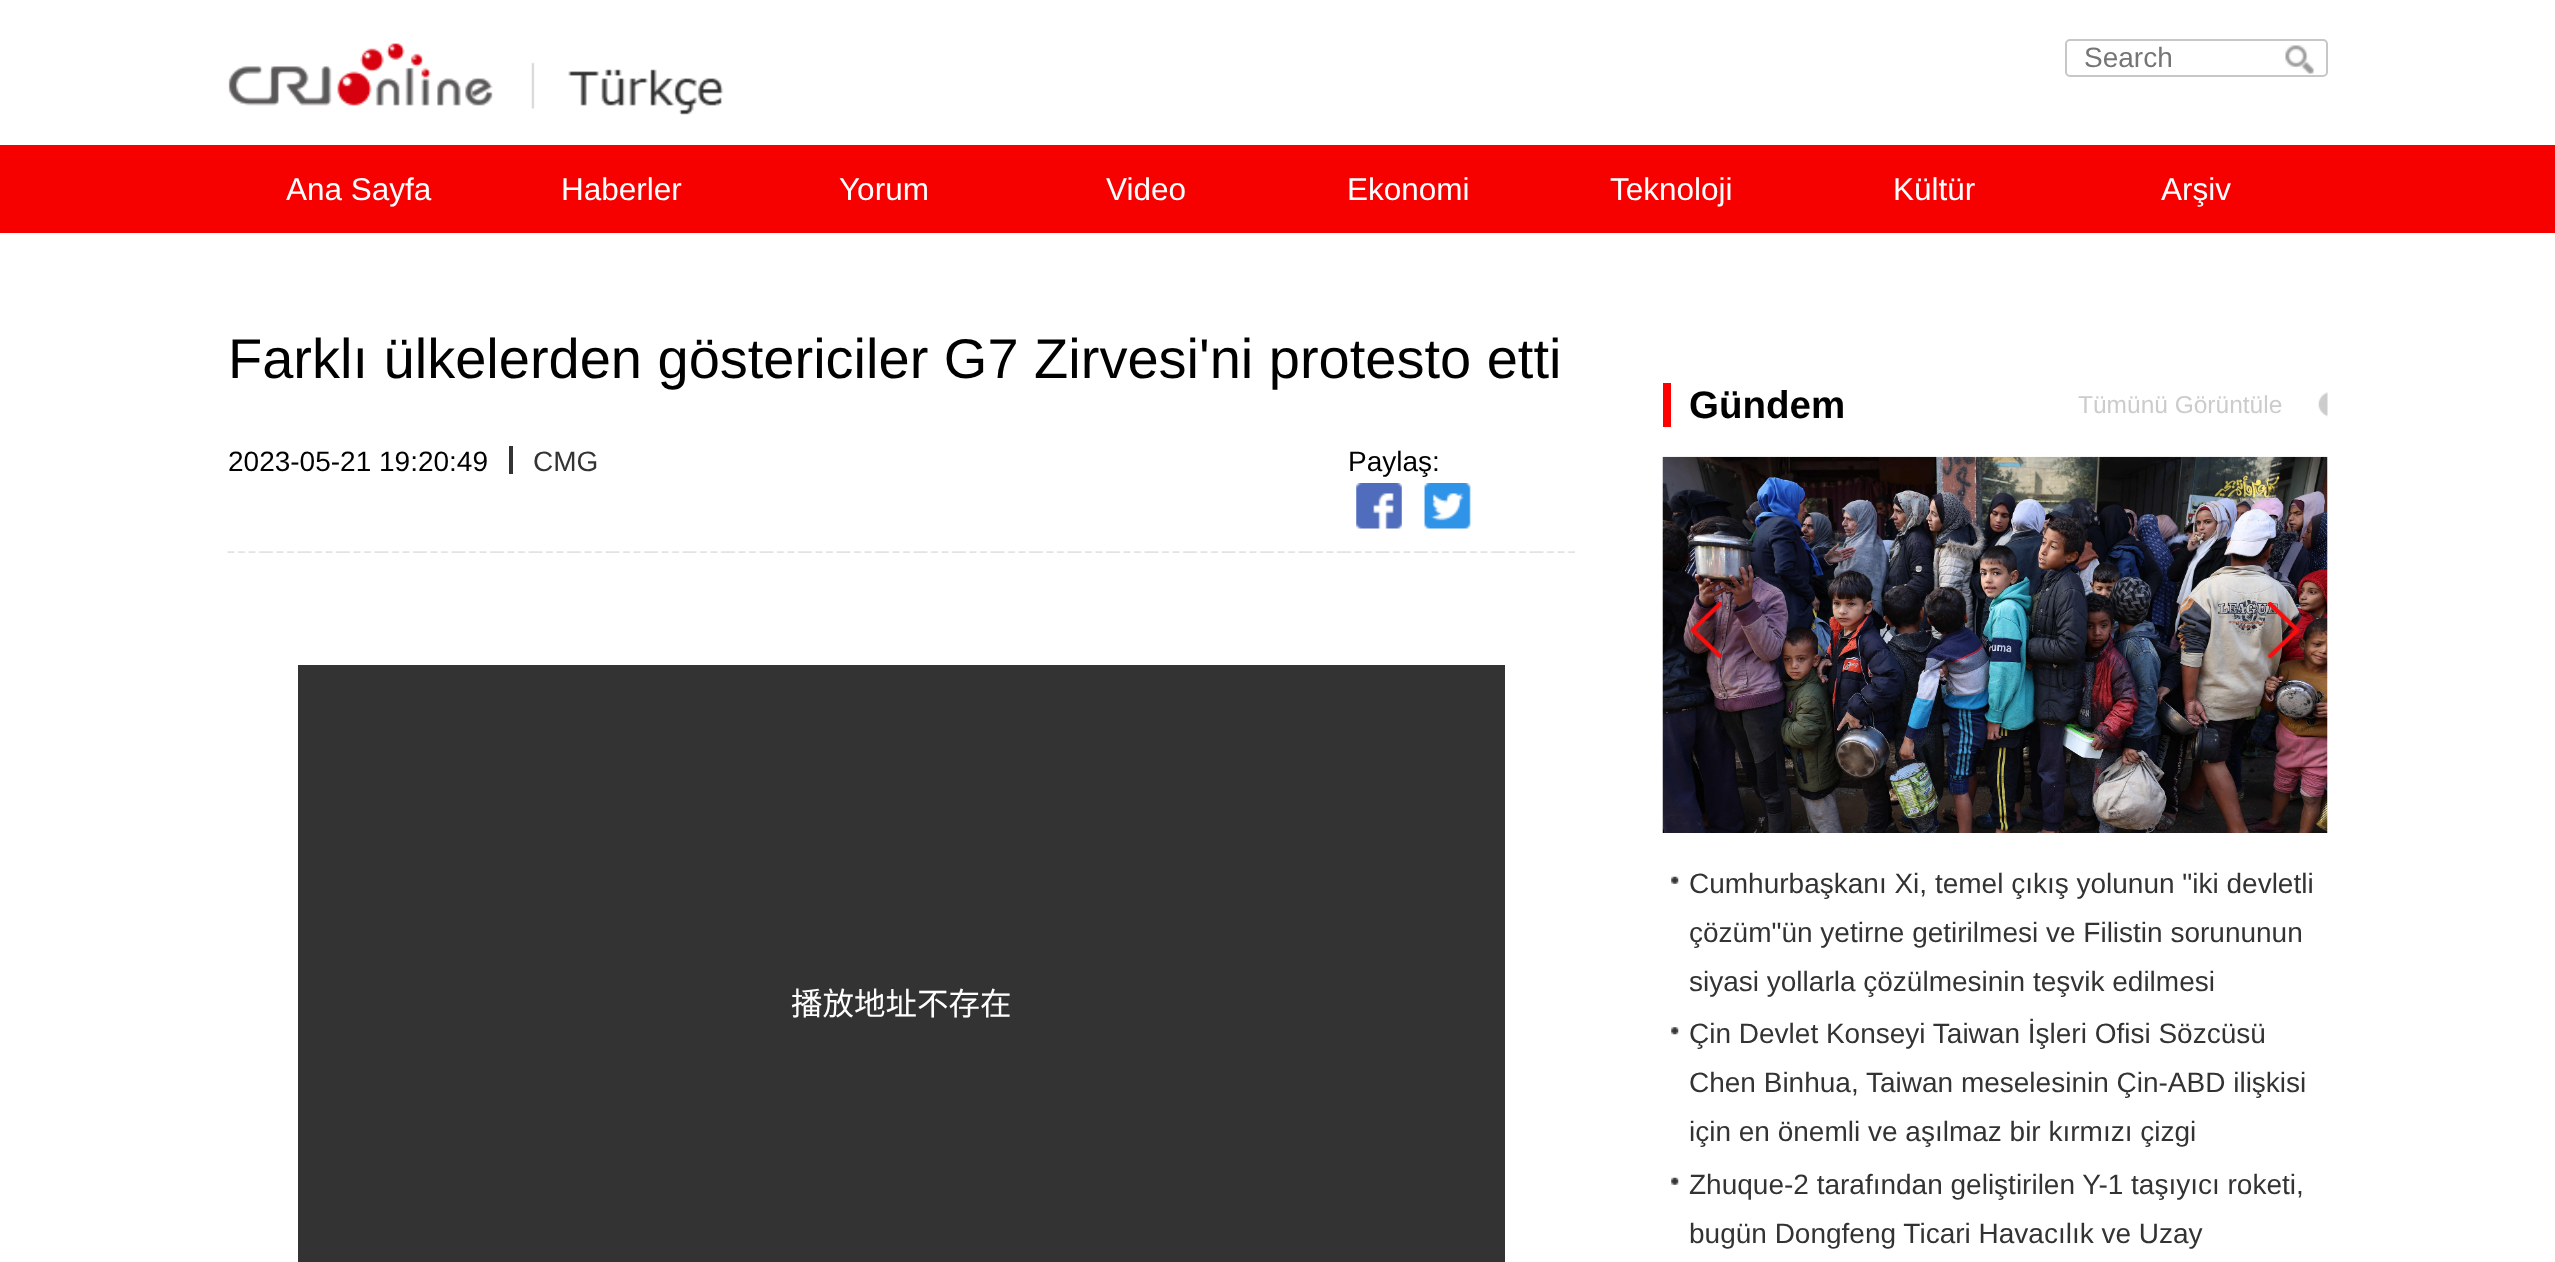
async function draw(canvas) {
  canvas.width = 2555;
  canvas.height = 1262;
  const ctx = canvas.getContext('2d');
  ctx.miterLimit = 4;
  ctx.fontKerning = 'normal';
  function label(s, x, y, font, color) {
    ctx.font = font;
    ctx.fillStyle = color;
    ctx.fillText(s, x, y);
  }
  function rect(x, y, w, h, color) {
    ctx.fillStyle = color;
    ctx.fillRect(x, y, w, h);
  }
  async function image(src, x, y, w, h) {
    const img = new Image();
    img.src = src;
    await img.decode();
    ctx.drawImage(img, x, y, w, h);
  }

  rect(0, 0, 2555, 1262, '#fff');
  await image('assets/img1.png', 228, 43, 496, 72);
  ctx.beginPath();
  ctx.roundRect(2066, 40, 261, 36, 4);
  ctx.strokeStyle = '#c7c7c7';
  ctx.lineWidth = 2;
  ctx.stroke();
  label('Search', 2084, 67, '28px Liberation Sans', '#757575');
  await image('assets/img2.png', 2285, 45, 29, 29);
  rect(0, 145, 2555, 88, '#f70000');
  label('Ana Sayfa', 286, 200, '31.5px Liberation Sans', '#fff');
  label('Haberler', 561, 200, '31.5px Liberation Sans', '#fff');
  label('Yorum', 839, 200, '31.5px Liberation Sans', '#fff');
  label('Video', 1106, 200, '31.5px Liberation Sans', '#fff');
  label('Ekonomi', 1347, 200, '31.5px Liberation Sans', '#fff');
  label('Teknoloji', 1610, 200, '31.5px Liberation Sans', '#fff');
  label('Kültür', 1893, 200, '31.5px Liberation Sans', '#fff');
  label('Arşiv', 2161, 200, '31.5px Liberation Sans', '#fff');
  label('Farklı ülkelerden göstericiler G7 Zirvesi\'ni protesto etti', 228, 378, '56px Liberation Sans', '#000');
  await image('assets/img3.png', 227, 551, 1348, 2);
  label('2023-05-21 19:20:49', 228, 471, '28px Liberation Sans', '#000');
  rect(509, 446, 4, 28, '#333');
  label('CMG', 533, 471, '28px Liberation Sans', '#333');
  label('Paylaş:', 1348, 471, '28px Liberation Sans', '#000');
  await image('assets/img4.png', 1356, 483, 46, 46);
  await image('assets/img5.png', 1424, 483, 47, 46);
  rect(298, 665, 1207, 597, '#333');
  label('播放地址不存在', 791, 1015, '31.5px Noto Sans CJK SC', '#fff');
  label('Gündem', 1689, 418, 'bold 38.5px Liberation Sans', '#000');
  rect(1663, 383, 8, 44, '#f00');
  label('Tümünü Görüntüle', 2078, 413, '24.5px Liberation Sans', '#ccc');
  await image('assets/img6.png', 2318, 392, 10, 25);
  await image('assets/img7.png', 1662, 456, 666, 377);
  await image('assets/img8.png', 1690, 602, 32, 56);
  await image('assets/img9.png', 2268, 602, 32, 56);
  await image('assets/img10.png', 1671, 876, 8, 8);
  label('Cumhurbaşkanı Xi, temel çıkış yolunun "iki devletli', 1689, 893, '28px Liberation Sans', '#333');
  label('çözüm"ün yetirne getirilmesi ve Filistin sorununun', 1689, 942, '28px Liberation Sans', '#333');
  label('siyasi yollarla çözülmesinin teşvik edilmesi', 1689, 991, '28px Liberation Sans', '#333');
  await image('assets/img11.png', 1671, 1027, 8, 8);
  label('Çin Devlet Konseyi Taiwan İşleri Ofisi Sözcüsü', 1689, 1043, '28px Liberation Sans', '#333');
  label('Chen Binhua, Taiwan meselesinin Çin-ABD ilişkisi', 1689, 1092, '28px Liberation Sans', '#333');
  label('için en önemli ve aşılmaz bir kırmızı çizgi', 1689, 1141, '28px Liberation Sans', '#333');
  await image('assets/img10.png', 1671, 1177, 8, 8);
  label('Zhuque-2 tarafından geliştirilen Y-1 taşıyıcı roketi,', 1689, 1194, '28px Liberation Sans', '#333');
  label('bugün Dongfeng Ticari Havacılık ve Uzay', 1689, 1243, '28px Liberation Sans', '#333');
}

draw(document.querySelector('canvas'));
